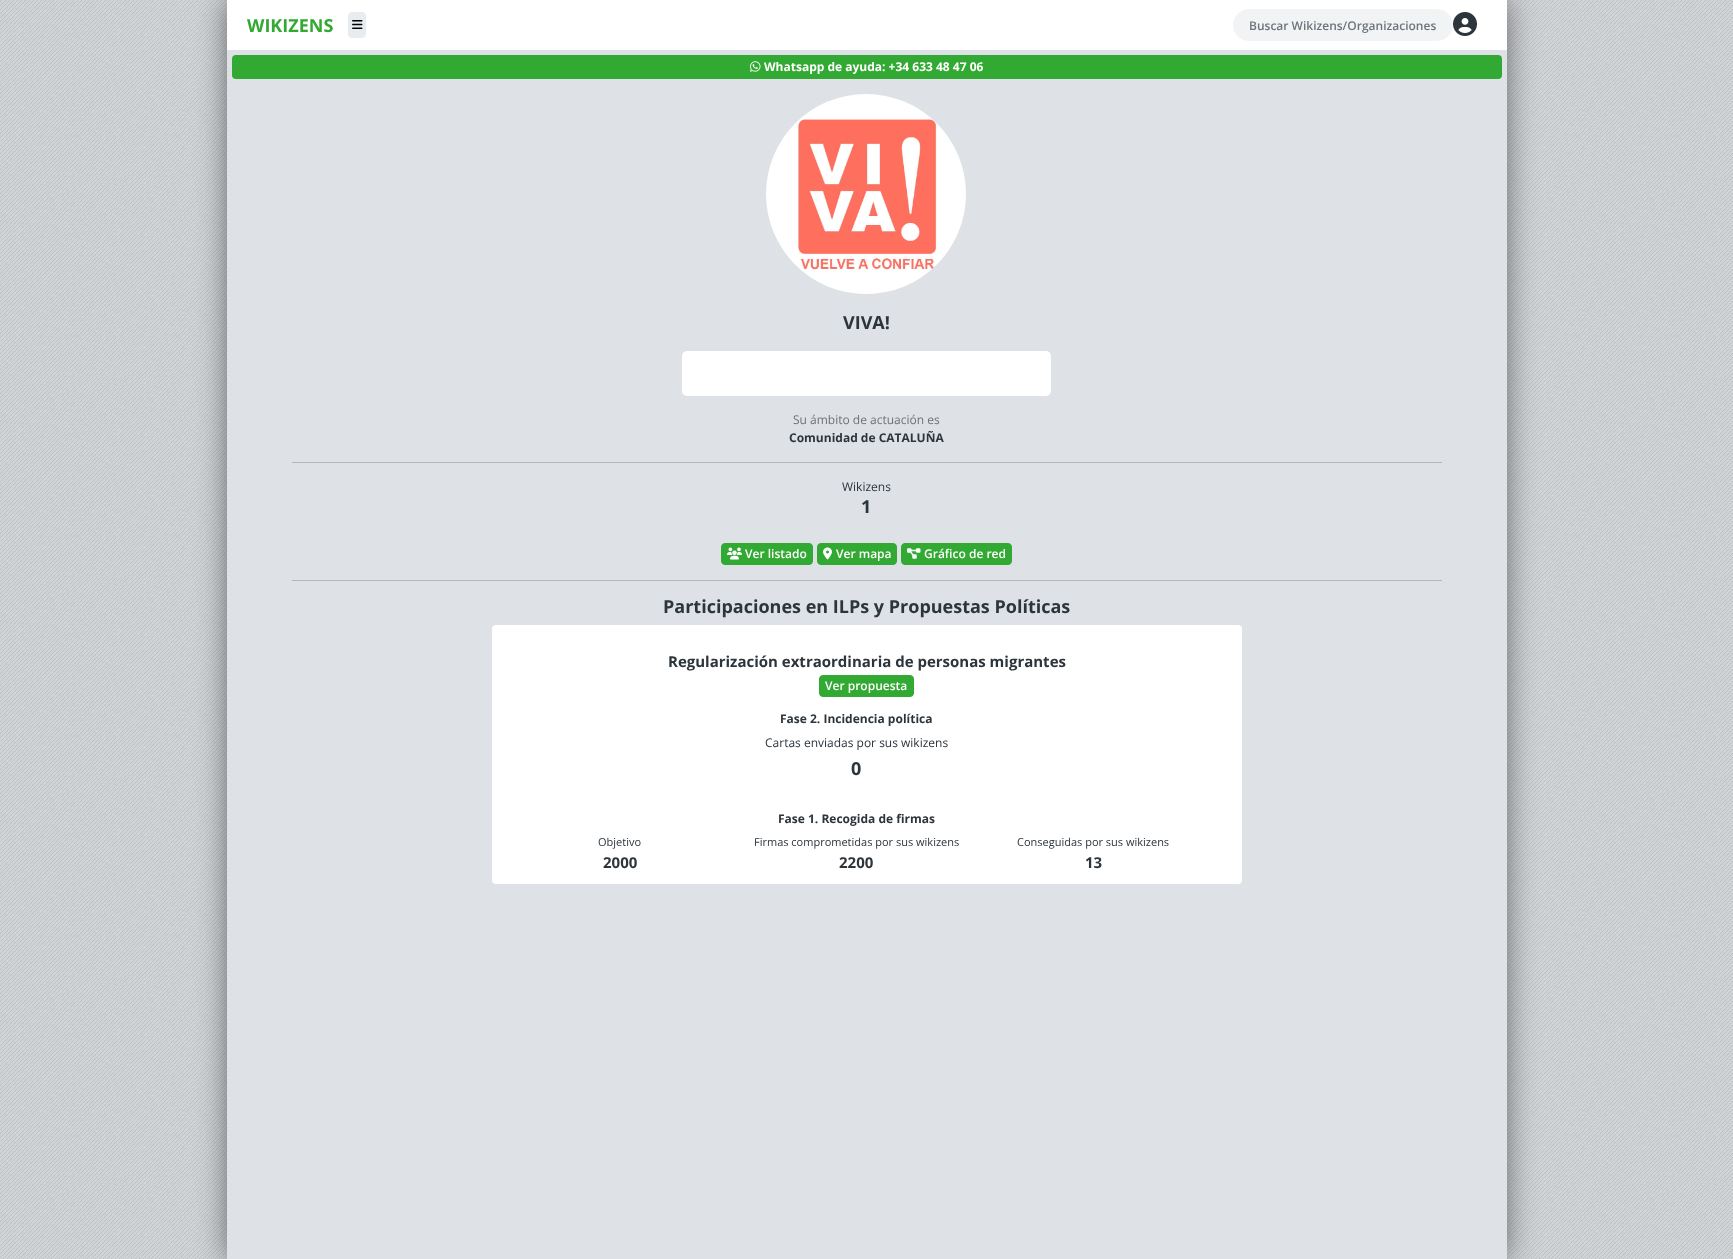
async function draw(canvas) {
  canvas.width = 1733;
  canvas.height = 1259;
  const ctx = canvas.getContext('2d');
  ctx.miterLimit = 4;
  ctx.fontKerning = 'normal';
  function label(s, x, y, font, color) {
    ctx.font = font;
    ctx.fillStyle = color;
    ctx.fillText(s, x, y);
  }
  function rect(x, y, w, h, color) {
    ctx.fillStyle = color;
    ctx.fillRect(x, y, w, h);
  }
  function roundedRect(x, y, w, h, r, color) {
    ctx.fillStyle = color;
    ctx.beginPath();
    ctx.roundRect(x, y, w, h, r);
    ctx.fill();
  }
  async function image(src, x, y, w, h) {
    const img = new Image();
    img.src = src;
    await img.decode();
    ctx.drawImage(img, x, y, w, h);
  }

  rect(0, 0, 1733, 1259, '#dee2e6');
  await image('assets/img1.png', 0, 0, 1733, 1259);
  ctx.fillStyle = '#00000080';
  ctx.filter = 'blur(15px)';
  ctx.beginPath();
  ctx.rect(227, 0, 1280, 1259);
  ctx.fill();
  ctx.filter = 'none';
  rect(227, 50, 1280, 1209, '#dee2e6');
  rect(227, 0, 1280, 50, '#fff');
  label('WIKIZENS', 247, 32, 'bold 18px Open Sans', '#32a932');
  ctx.fillStyle = '#e9ecef';
  ctx.beginPath();
  ctx.roundRect(348.5, 12.5, 17, 25, 3.5);
  ctx.fill();
  ctx.strokeStyle = '#e9ecef';
  ctx.stroke();
  await image('assets/img2.png', 352, 20, 11, 9);
  ctx.fillStyle = '#f2f3f4';
  ctx.beginPath();
  ctx.roundRect(1233.5, 9.5, 219, 31, 15.5);
  ctx.fill();
  ctx.strokeStyle = '#f2f3f4';
  ctx.stroke();
  label('Buscar Wikizens/Organizaciones', 1249, 30, '600 12px Open Sans', '#6c757d');
  await image('assets/img3.png', 1453, 12, 24, 24);
  roundedRect(232, 55, 1270, 24, 4, '#32a932');
  await image('assets/img4.png', 750, 61, 11, 11);
  label('Whatsapp de ayuda: +34 633 48 47 06', 764, 71, 'bold 12px Open Sans', '#fff');
  await image('assets/img5.png', 766, 94, 200, 200);
  label('VIVA!', 843, 329, 'bold 18px Open Sans', '#2d353c');
  roundedRect(682, 351, 369, 45, 5, '#fff');
  label('Su ámbito de actuación es', 793, 424, '12px Open Sans', '#6f7173');
  label('Comunidad de CATALUÑA', 789, 442, 'bold 12px Open Sans', '#2d353c');
  rect(292, 462, 1150, 1, '#b2b7bc');
  label('Wikizens', 842, 491, '12px Open Sans', '#2d353c');
  label('1', 861, 513, 'bold 18px Open Sans', '#2d353c');
  ctx.fillStyle = '#32a932';
  ctx.beginPath();
  ctx.roundRect(721.5, 543.5, 91, 21, 3.5);
  ctx.fill();
  ctx.strokeStyle = '#32a932';
  ctx.stroke();
  await image('assets/img6.png', 727, 547, 15, 13);
  label('Ver listado', 745, 558, '600 12px Open Sans', '#fff');
  ctx.fillStyle = '#32a932';
  ctx.beginPath();
  ctx.roundRect(817.5, 543.5, 79, 21, 3.5);
  ctx.fill();
  ctx.stroke();
  await image('assets/img7.png', 823, 547, 9, 13);
  label('Ver mapa', 836, 558, '600 12px Open Sans', '#fff');
  ctx.fillStyle = '#32a932';
  ctx.beginPath();
  ctx.roundRect(901.5, 543.5, 110, 21, 3.5);
  ctx.fill();
  ctx.stroke();
  await image('assets/img8.png', 907, 548, 14, 11);
  label('Gráfico de red', 924, 558, '600 12px Open Sans', '#fff');
  rect(292, 580, 1150, 1, '#b2b7bc');
  label('Participaciones en ILPs y Propuestas Políticas', 663, 613, 'bold 18px Open Sans', '#2d353c');
  roundedRect(492, 625, 750, 259, 4, '#fff');
  label('Regularización extraordinaria de personas migrantes', 668, 667, 'bold 15px Open Sans', '#2d353c');
  ctx.fillStyle = '#32a932';
  ctx.beginPath();
  ctx.roundRect(819.5, 675.5, 94, 21, 3.5);
  ctx.fill();
  ctx.stroke();
  label('Ver propuesta', 825, 690, '600 12px Open Sans', '#fff');
  label('Fase 2. Incidencia política', 780, 723, 'bold 12px Open Sans', '#2d353c');
  label('Cartas enviadas por sus wikizens', 765, 747, '12px Open Sans', '#2d353c');
  label('0', 851, 775, 'bold 18px Open Sans', '#2d353c');
  label('Fase 1. Recogida de firmas', 778, 823, 'bold 12px Open Sans', '#2d353c');
  label('Objetivo', 598, 846, '11px Open Sans', '#2d353c');
  label('2000', 603, 868, 'bold 15px Open Sans', '#2d353c');
  label('Firmas comprometidas por sus wikizens', 754, 846, '11px Open Sans', '#2d353c');
  label('2200', 839, 868, 'bold 15px Open Sans', '#2d353c');
  label('Conseguidas por sus wikizens', 1017, 846, '11px Open Sans', '#2d353c');
  label('13', 1085, 868, 'bold 15px Open Sans', '#2d353c');
}

draw(document.querySelector('canvas'));
